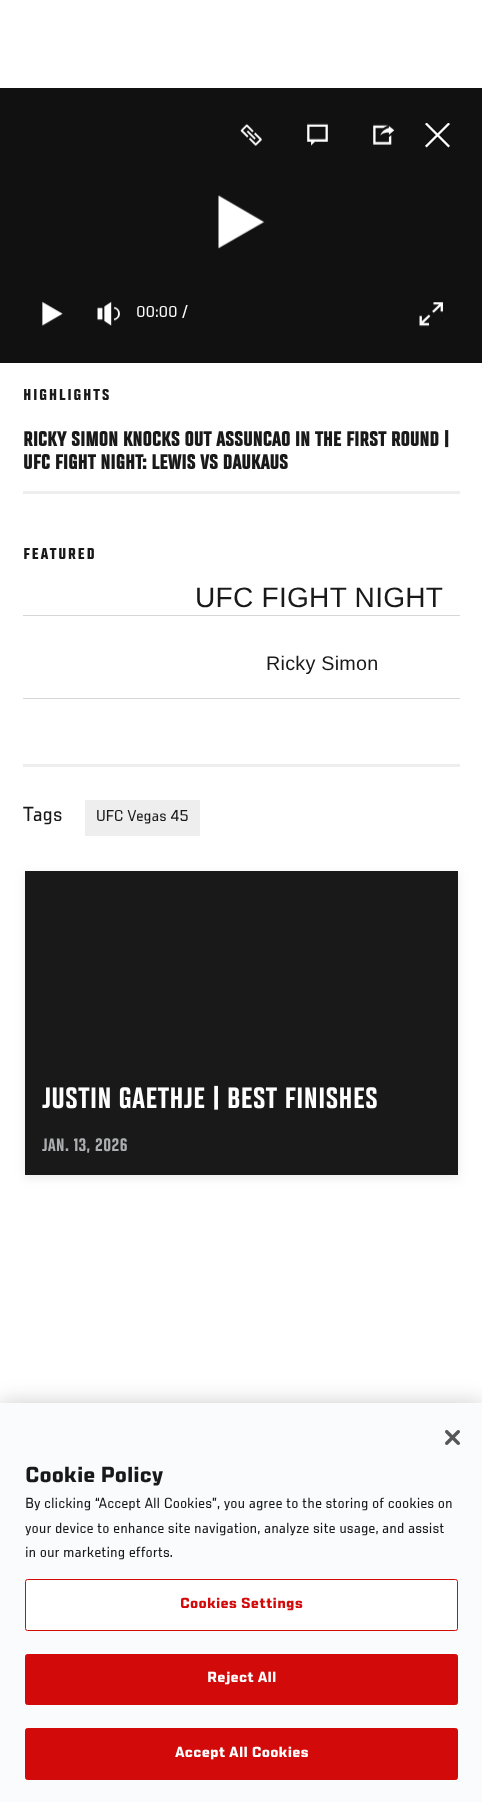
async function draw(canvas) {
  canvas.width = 482;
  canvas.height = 1802;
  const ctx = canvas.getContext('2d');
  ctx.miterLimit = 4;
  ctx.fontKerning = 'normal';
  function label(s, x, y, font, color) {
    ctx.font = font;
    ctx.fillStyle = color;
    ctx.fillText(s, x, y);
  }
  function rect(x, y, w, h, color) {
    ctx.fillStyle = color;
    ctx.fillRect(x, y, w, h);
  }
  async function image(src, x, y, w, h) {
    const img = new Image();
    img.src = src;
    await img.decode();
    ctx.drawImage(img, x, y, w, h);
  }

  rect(0, 0, 482, 1802, '#fff');
  rect(0, 88, 482, 275, '#111');
  await image('assets/img1.png', 240, 123, 22, 23);
  await image('assets/img2.png', 307, 123, 21, 23);
  await image('assets/img3.png', 373, 124, 22, 21);
  await image('assets/img4.png', 425, 123, 25, 25);
  await image('assets/img5.png', 218, 195, 47, 54);
  await image('assets/img6.png', 42, 301, 21, 25);
  await image('assets/img7.png', 97, 301, 23, 25);
  label('00:00 /', 136, 317, '17.5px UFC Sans', '#fff');
  await image('assets/img8.png', 419, 302, 24, 25);
  ctx.letterSpacing = '1.5px';
  label('HIGHLIGHTS', 23, 400, 'bold 17.5px UFC Sans', '#191919');
  ctx.letterSpacing = '0px';
  label('RICKY SIMON KNOCKS OUT ASSUNCAO IN THE FIRST ROUND |', 23, 446, 'bold 22.5px "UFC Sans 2"', '#191919');
  label('UFC FIGHT NIGHT: LEWIS VS DAUKAUS', 23, 469, 'bold 22.5px "UFC Sans 2"', '#191919');
  rect(23, 491, 437, 3, '#eeeeef');
  rect(23, 764, 437, 3, '#eeeeef');
  ctx.letterSpacing = '1.5px';
  label('FEATURED', 23, 559, 'bold 17.5px UFC Sans', '#191919');
  rect(23, 615, 437, 1, '#d5d6d8');
  ctx.letterSpacing = '0.25px';
  label('UFC FIGHT NIGHT', 195, 607, '28.1px Liberation Sans', '#191919');
  rect(23, 698, 437, 1, '#d5d6d8');
  label('Ricky Simon', 266, 670, '19.75px Liberation Sans', '#191919');
  ctx.letterSpacing = '0px';
  label('Tags', 23, 821, '22.5px UFC Sans', '#191919');
  rect(85, 800, 115, 36, '#eeeeef');
  label('UFC Vegas 45', 96, 821, '17.5px UFC Sans', '#191919');
  ctx.fillStyle = '#635b631a';
  ctx.filter = 'blur(5px)';
  ctx.beginPath();
  ctx.rect(24, 873, 435, 306);
  ctx.fill();
  ctx.filter = 'none';
  rect(25, 871, 433, 304, '#191919');
  label('JUSTIN GAETHJE | BEST FINISHES', 42, 1108, '500 32.5px UFC Sans', '#fff');
  label('JAN. 13, 2026', 42, 1151, '500 20px UFC Sans', '#abadb1');
  ctx.fillStyle = '#00000033';
  ctx.filter = 'blur(11px)';
  ctx.beginPath();
  ctx.rect(0, 1403, 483, 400);
  ctx.fill();
  ctx.filter = 'none';
  rect(0, 1403, 482, 399, '#fafbfd');
  await image('assets/img9.png', 445, 1430, 15, 15);
  label('Cookie Policy', 25, 1482, 'bold 24px "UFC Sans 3"', '#191919');
  label('By clicking “Accept All Cookies”, you agree to the storing of cookies on', 25, 1508, '16.25px UFC Sans', '#191919');
  label('your device to enhance site navigation, analyze site usage, and assist', 25, 1533, '16.25px UFC Sans', '#191919');
  label('in our marketing efforts.', 25, 1557, '16.25px UFC Sans', '#191919');
  ctx.fillStyle = '#fff';
  ctx.beginPath();
  ctx.roundRect(25.5, 1579.5, 432, 51, 2);
  ctx.fill();
  ctx.strokeStyle = '#d20a0a';
  ctx.stroke();
  ctx.letterSpacing = '0.2px';
  label('Cookies Settings', 180, 1608, 'bold 16.25px "UFC Sans 3"', '#d20a0a');
  ctx.beginPath();
  ctx.roundRect(25.5, 1654.5, 432, 50, 2);
  ctx.fill();
  ctx.stroke();
  label('Reject All', 207, 1682, 'bold 16.25px "UFC Sans 3"', '#fff');
  ctx.fillStyle = '#d20a0a';
  ctx.beginPath();
  ctx.roundRect(25.5, 1728.5, 432, 51, 2);
  ctx.fill();
  ctx.stroke();
  label('Accept All Cookies', 175, 1757, 'bold 16.25px "UFC Sans 3"', '#fff');
}

draw(document.querySelector('canvas'));
